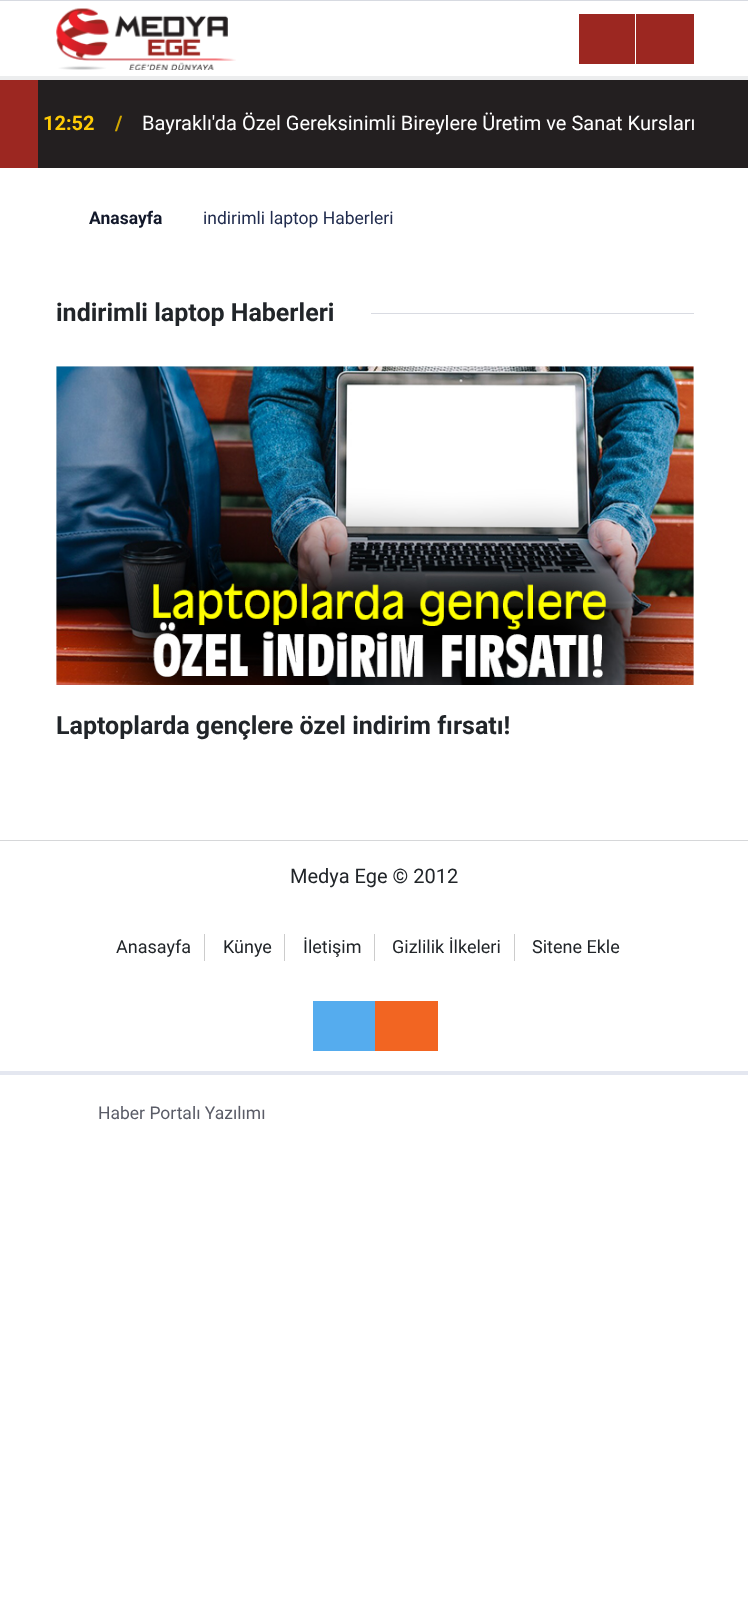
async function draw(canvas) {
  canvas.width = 748;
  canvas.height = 1613;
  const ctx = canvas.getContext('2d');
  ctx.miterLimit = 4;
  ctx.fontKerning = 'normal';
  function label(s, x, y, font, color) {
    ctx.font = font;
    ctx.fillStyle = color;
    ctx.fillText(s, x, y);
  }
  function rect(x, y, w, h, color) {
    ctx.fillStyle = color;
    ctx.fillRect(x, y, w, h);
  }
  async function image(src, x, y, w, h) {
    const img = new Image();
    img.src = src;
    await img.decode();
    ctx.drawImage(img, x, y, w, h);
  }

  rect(0, 0, 748, 1613, '#fff');
  rect(0, 0, 748, 1, '#d7dae1');
  rect(0, 76, 748, 4, '#ecedee');
  await image('assets/img1.png', 56, 8, 180, 62);
  rect(579, 14, 56, 50, '#9c2721');
  rect(636, 14, 58, 50, '#9c2721');
  rect(0, 80, 38, 88, '#9c2721');
  rect(38, 80, 710, 88, '#231f20');
  label('12:52', 43, 130, 'bold 20px Roboto', '#ffcb05');
  label('/', 115, 130, 'bold 20px Roboto', '#d1a600');
  label('Bayraklı\'da Özel Gereksinimli Bireylere Üretim ve Sanat Kursları', 142, 130, '20px Roboto', '#fff');
  label('Anasayfa', 89, 224, 'bold 17.5px Roboto', '#12182a');
  label('indirimli laptop Haberleri', 203, 224, '17.5px Roboto', '#212c4e');
  label('indirimli laptop Haberleri', 56, 321, 'bold 25px Roboto', '#212529');
  rect(371, 313, 323, 1, '#d9dbe2');
  rect(56, 366, 638, 319, '#f8f8f8');
  await image('assets/img2.png', 56, 366, 638, 319);
  label('Laptoplarda gençlere özel indirim fırsatı!', 56, 734, 'bold 25px Roboto', '#212529');
  rect(0, 840, 748, 1, '#d6d7d9');
  rect(0, 1071, 748, 4, '#e4e7f0');
  label('Medya Ege © 2012', 290, 883, '20px Roboto', '#212529');
  rect(204, 934, 1, 27, '#ccc');
  label('Anasayfa', 116, 953, '18px Roboto', '#212529');
  rect(284, 934, 1, 27, '#ccc');
  label('Künye', 223, 953, '18px Roboto', '#212529');
  rect(374, 934, 1, 27, '#ccc');
  label('İletişim', 303, 953, '18px Roboto', '#212529');
  rect(514, 934, 1, 27, '#ccc');
  label('Gizlilik İlkeleri', 392, 953, '18px Roboto', '#212529');
  label('Sitene Ekle', 532, 953, '18px Roboto', '#212529');
  rect(313, 1001, 62, 50, '#55acee');
  rect(375, 1001, 63, 50, '#f26522');
  label('Haber Portalı Yazılımı', 98, 1119, '17.5px Roboto', '#5a5c67');
}

draw(document.querySelector('canvas'));
